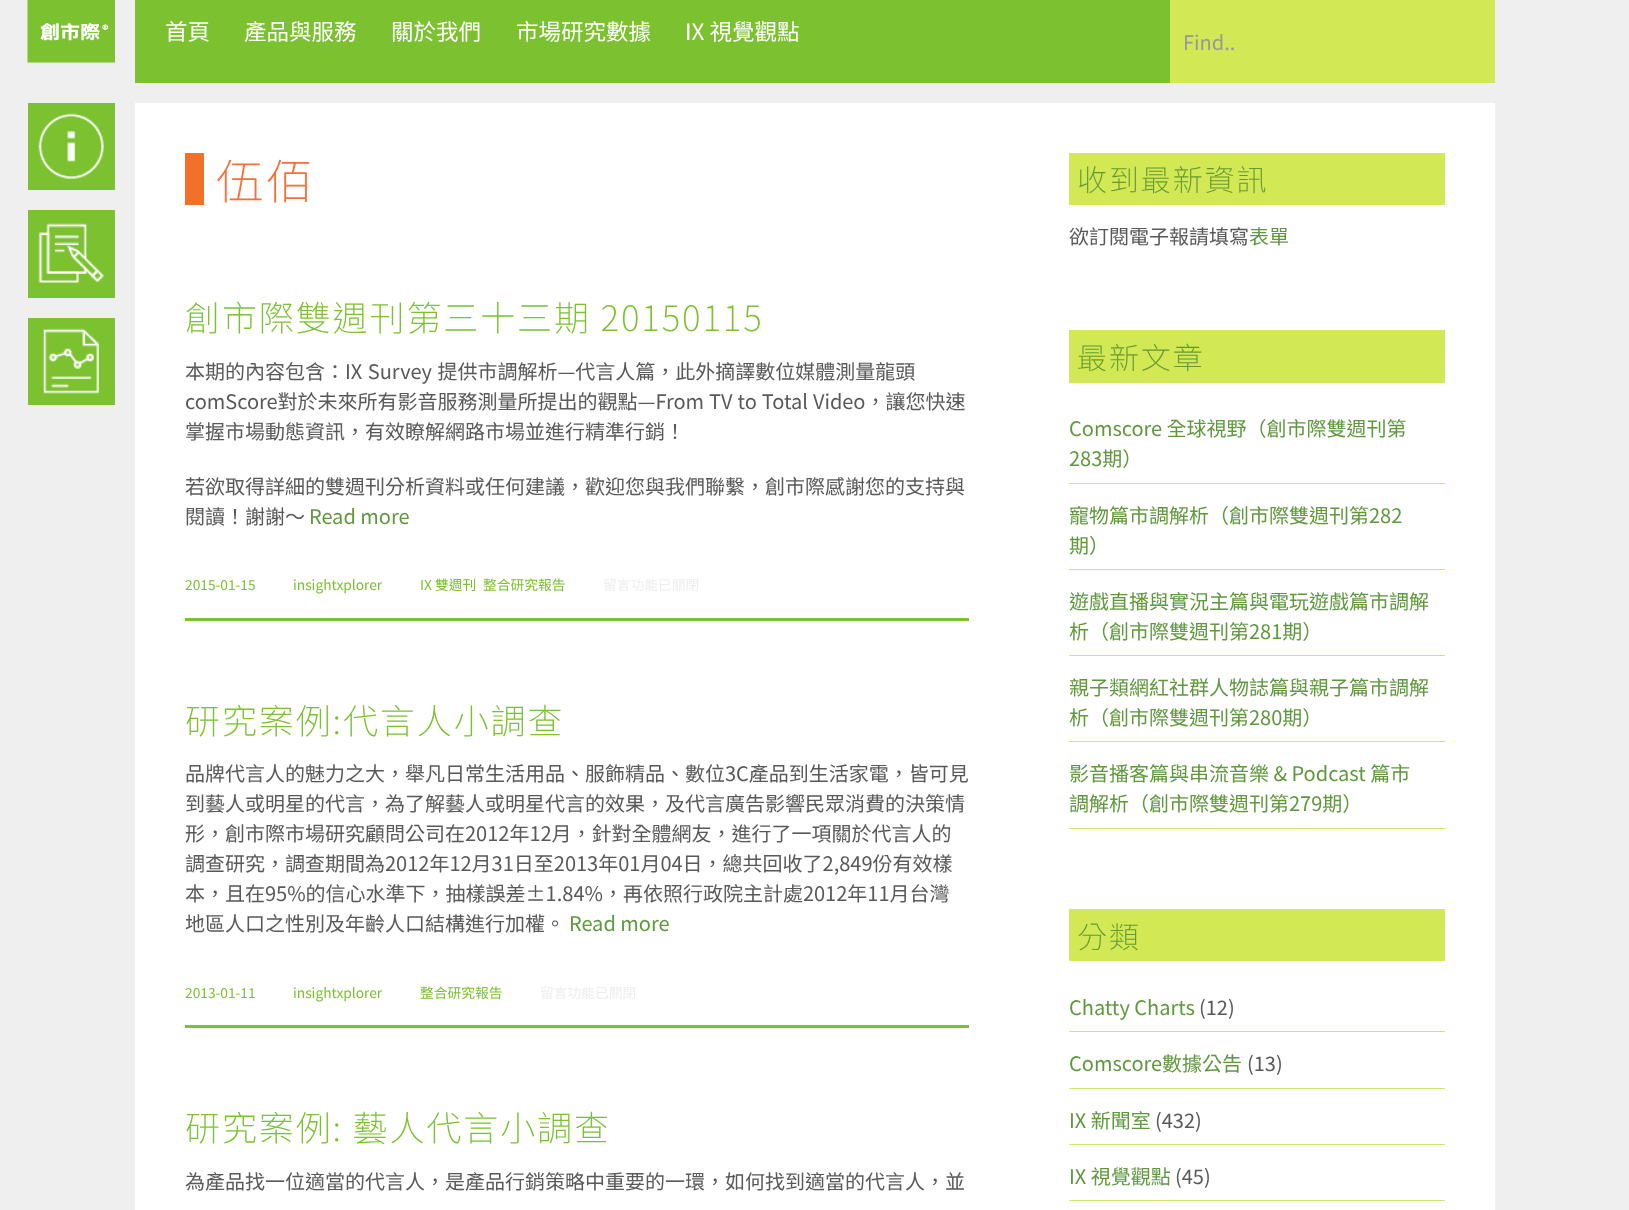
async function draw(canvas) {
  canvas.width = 1629;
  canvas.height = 1210;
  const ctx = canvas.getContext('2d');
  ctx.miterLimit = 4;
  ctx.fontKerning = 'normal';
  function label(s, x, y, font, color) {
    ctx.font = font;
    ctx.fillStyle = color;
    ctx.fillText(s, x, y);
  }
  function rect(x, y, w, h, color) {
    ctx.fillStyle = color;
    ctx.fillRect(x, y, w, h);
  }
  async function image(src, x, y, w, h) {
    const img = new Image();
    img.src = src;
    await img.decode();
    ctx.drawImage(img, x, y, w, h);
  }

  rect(0, 0, 1629, 1210, '#efefef');
  rect(135, 0, 1035, 83, '#7bc130');
  await image('assets/img1.png', 27, 0, 88, 63);
  label('首頁', 165, 40, '22.5px Noto Sans TC', '#fff');
  label('產品與服務', 244, 40, '22.5px Noto Sans TC', '#fff');
  label('關於我們', 391, 40, '22.5px Noto Sans TC', '#fff');
  label('市場研究數據', 516, 40, '22.5px Noto Sans TC', '#fff');
  label('IX 視覺觀點', 685, 40, '22.5px Noto Sans TC', '#fff');
  rect(1170, 0, 325, 83, '#d2e854');
  label('Find..', 1183, 50, '20px Noto Sans TC', '#999');
  rect(135, 103, 1360, 1107, '#fff');
  rect(28, 103, 87, 87, '#7bc130');
  await image('assets/img2.png', 38, 113, 66, 66);
  rect(28, 210, 87, 88, '#7bc130');
  await image('assets/img3.png', 38, 223, 66, 60);
  rect(28, 318, 87, 87, '#7bc130');
  await image('assets/img4.png', 43, 328, 56, 66);
  rect(185, 153, 19, 52, '#f2712a');
  ctx.letterSpacing = '1.9px';
  label('伍佰', 216, 199, '200 47.5px Noto Sans TC', '#f76f39');
  rect(185, 618, 784, 3, '#7bc130');
  label('創市際雙週刊第三十三期 20150115', 185, 331, '200 35px Noto Sans TC', '#7bc130');
  ctx.letterSpacing = '0px';
  ctx.wordSpacing = '1px';
  label('本期的內容包含：IX Survey 提供市調解析—代言人篇，此外摘譯數位媒體測量龍頭', 185, 379, '20px Noto Sans TC', '#595959');
  ctx.wordSpacing = '0.5px';
  label('comScore對於未來所有影音服務測量所提出的觀點—From TV to Total Video，讓您快速', 185, 409, '20px Noto Sans TC', '#595959');
  ctx.wordSpacing = '0px';
  label('掌握市場動態資訊，有效瞭解網路市場並進行精準行銷！', 185, 439, '20px Noto Sans TC', '#595959');
  label('若欲取得詳細的雙週刊分析資料或任何建議，歡迎您與我們聯繫，創市際感謝您的支持與', 185, 494, '20px Noto Sans TC', '#595959');
  label('閱讀！謝謝～', 185, 524, '20px Noto Sans TC', '#595959');
  label('Read more', 309, 524, '20px Noto Sans TC', '#60993d');
  label('2015-01-15', 185, 590, '13.75px Noto Sans TC', '#7bc130');
  label('insightxplorer', 293, 590, '13.75px Noto Sans TC', '#7bc130');
  label('IX 雙週刊', 420, 590, '13.75px Noto Sans TC', '#7bc130');
  label('整合研究報告', 483, 590, '13.75px Noto Sans TC', '#7bc130');
  label('留言功能已關閉', 603, 590, '13.75px Noto Sans TC', '#eee');
  rect(185, 1025, 784, 3, '#7bc130');
  ctx.letterSpacing = '1.9px';
  label('研究案例:代言人小調查', 185, 734, '200 35px Noto Sans TC', '#7bc130');
  ctx.letterSpacing = '0px';
  label('品牌代言人的魅力之大，舉凡日常生活用品、服飾精品、數位3C產品到生活家電，皆可見', 185, 781, '20px Noto Sans TC', '#595959');
  label('到藝人或明星的代言，為了解藝人或明星代言的效果，及代言廣告影響民眾消費的決策情', 185, 811, '20px Noto Sans TC', '#595959');
  label('形，創市際市場研究顧問公司在2012年12月，針對全體網友，進行了一項關於代言人的', 185, 841, '20px Noto Sans TC', '#595959');
  label('調查研究，調查期間為2012年12月31日至2013年01月04日，總共回收了2,849份有效樣', 185, 871, '20px Noto Sans TC', '#595959');
  label('本，且在95%的信心水準下，抽樣誤差±1.84%，再依照行政院主計處2012年11月台灣', 185, 901, '20px Noto Sans TC', '#595959');
  label('地區人口之性別及年齡人口結構進行加權。', 185, 931, '20px Noto Sans TC', '#595959');
  label('Read more', 569, 931, '20px Noto Sans TC', '#60993d');
  label('2013-01-11', 185, 998, '13.75px Noto Sans TC', '#7bc130');
  label('insightxplorer', 293, 998, '13.75px Noto Sans TC', '#7bc130');
  label('整合研究報告', 420, 998, '13.75px Noto Sans TC', '#7bc130');
  label('留言功能已關閉', 540, 998, '13.75px Noto Sans TC', '#eee');
  ctx.letterSpacing = '1.9px';
  label('研究案例: 藝人代言小調查', 185, 1141, '200 35px Noto Sans TC', '#7bc130');
  ctx.letterSpacing = '0px';
  label('為產品找一位適當的代言人，是產品行銷策略中重要的一環，如何找到適當的代言人，並', 185, 1189, '20px Noto Sans TC', '#595959');
  rect(1069, 153, 376, 52, '#d2e854');
  ctx.letterSpacing = '1.9px';
  label('收到最新資訊', 1077, 191, '200 30px Noto Sans TC', '#693');
  ctx.letterSpacing = '0px';
  label('欲訂閱電子報請填寫', 1069, 244, '20px Noto Sans TC', '#595959');
  label('表單', 1249, 244, '20px Noto Sans TC', '#60993d');
  rect(1069, 330, 376, 53, '#d2e854');
  ctx.letterSpacing = '1.9px';
  label('最新文章', 1077, 369, '200 30px Noto Sans TC', '#693');
  rect(1069, 483, 376, 1, '#cfe76c');
  ctx.letterSpacing = '0px';
  label('Comscore 全球視野（創市際雙週刊第', 1069, 436, '20px Noto Sans TC', '#60993d');
  label('283期）', 1069, 466, '20px Noto Sans TC', '#60993d');
  rect(1069, 569, 376, 1, '#cfe76c');
  label('寵物篇市調解析（創市際雙週刊第282', 1069, 523, '20px Noto Sans TC', '#60993d');
  label('期）', 1069, 553, '20px Noto Sans TC', '#60993d');
  rect(1069, 655, 376, 1, '#cfe76c');
  label('遊戲直播與實況主篇與電玩遊戲篇市調解', 1069, 609, '20px Noto Sans TC', '#60993d');
  label('析（創市際雙週刊第281期）', 1069, 639, '20px Noto Sans TC', '#60993d');
  rect(1069, 741, 376, 1, '#cfe76c');
  label('親子類網紅社群人物誌篇與親子篇市調解', 1069, 695, '20px Noto Sans TC', '#60993d');
  label('析（創市際雙週刊第280期）', 1069, 725, '20px Noto Sans TC', '#60993d');
  rect(1069, 828, 376, 1, '#cfe76c');
  label('影音播客篇與串流音樂 & Podcast 篇市', 1069, 781, '20px Noto Sans TC', '#60993d');
  label('調解析（創市際雙週刊第279期）', 1069, 811, '20px Noto Sans TC', '#60993d');
  rect(1069, 909, 376, 52, '#d2e854');
  ctx.letterSpacing = '1.9px';
  label('分類', 1077, 948, '200 30px Noto Sans TC', '#693');
  rect(1069, 1031, 376, 1, '#cfe76c');
  ctx.letterSpacing = '0px';
  label('Chatty Charts', 1069, 1015, '20px Noto Sans TC', '#60993d');
  label('(12)', 1199, 1015, '20px Noto Sans TC', '#595959');
  rect(1069, 1088, 376, 1, '#cfe76c');
  label('Comscore數據公告', 1069, 1071, '20px Noto Sans TC', '#60993d');
  label('(13)', 1247, 1071, '20px Noto Sans TC', '#595959');
  rect(1069, 1144, 376, 1, '#cfe76c');
  label('IX 新聞室', 1069, 1128, '20px Noto Sans TC', '#60993d');
  label('(432)', 1155, 1128, '20px Noto Sans TC', '#595959');
  rect(1069, 1200, 376, 1, '#cfe76c');
  label('IX 視覺觀點', 1069, 1184, '20px Noto Sans TC', '#60993d');
  label('(45)', 1175, 1184, '20px Noto Sans TC', '#595959');
}

draw(document.querySelector('canvas'));
